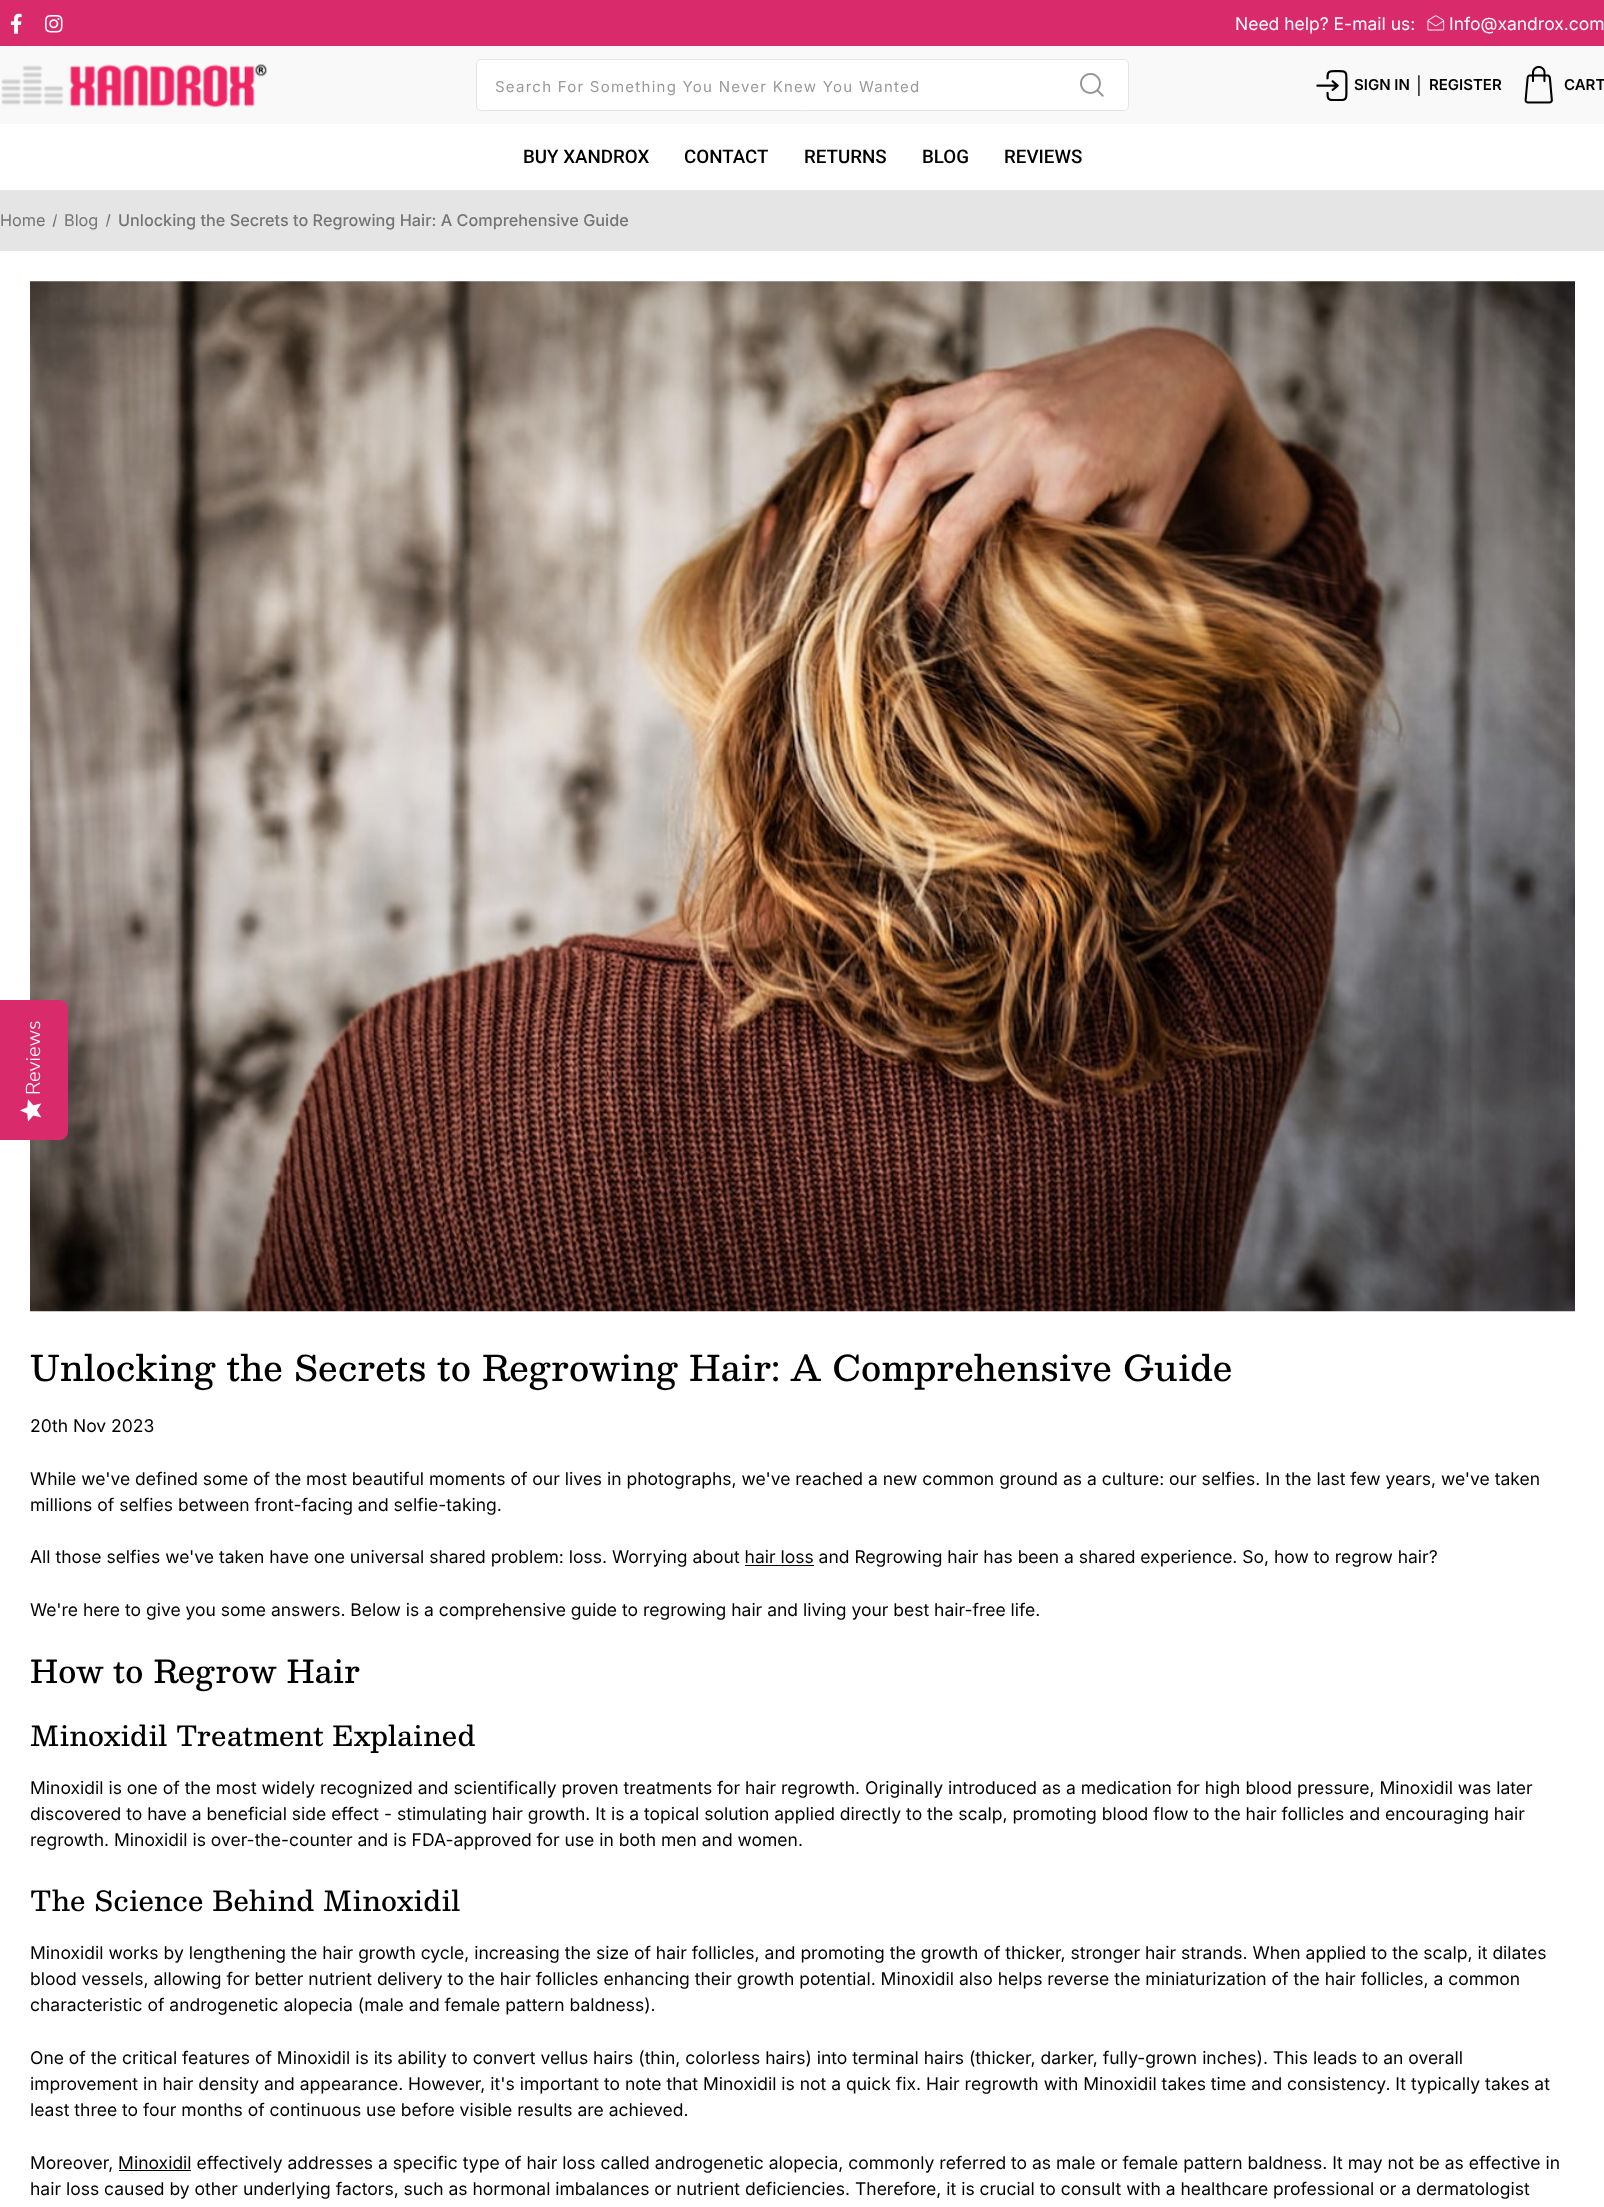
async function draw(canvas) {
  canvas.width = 1604;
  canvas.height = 2207;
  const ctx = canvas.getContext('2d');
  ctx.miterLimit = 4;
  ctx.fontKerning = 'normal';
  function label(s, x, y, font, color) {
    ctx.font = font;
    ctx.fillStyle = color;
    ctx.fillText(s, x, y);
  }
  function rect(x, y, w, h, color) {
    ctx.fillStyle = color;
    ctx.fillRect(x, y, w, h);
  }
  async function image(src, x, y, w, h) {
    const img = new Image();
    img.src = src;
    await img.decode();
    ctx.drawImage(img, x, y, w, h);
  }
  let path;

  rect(0, 0, 1604, 2207, '#d92b6b');
  await image('assets/img1.png', 10, 13, 12, 21);
  await image('assets/img2.png', 45, 15, 18, 18);
  label('Need help? E-mail us:', 1235, 30, '17.5px Inter', '#fff');
  await image('assets/img3.png', 1427, 15, 18, 16);
  label('Info@xandrox.com', 1449, 30, '17.5px Inter', '#fff');
  rect(0, 124, 1604, 66, '#fff');
  rect(0, 46, 1604, 78, '#f9f9f9');
  await image('assets/img4.png', 1, 64, 266, 44);
  ctx.fillStyle = '#fff';
  ctx.beginPath();
  ctx.roundRect(476.5, 59.5, 652, 51, 4.5);
  ctx.fill();
  ctx.strokeStyle = '#e5e5e5';
  ctx.stroke();
  ctx.letterSpacing = '1.25px';
  label('Search For Something You Never Knew You Wanted', 495, 92, '15px Inter', '#999');
  await image('assets/img5.png', 1080, 73, 24, 24);
  await image('assets/img6.png', 1316, 70, 32, 31);
  ctx.letterSpacing = '0px';
  label('SIGN IN', 1354, 90, '600 15px Inter', '#000');
  label('|', 1416, 92, '17.5px Inter', '#000');
  label('REGISTER', 1429, 90, '600 15px Inter', '#000');
  await image('assets/img7.png', 1524, 65, 29, 39);
  label('CART', 1564, 90, '600 15px Inter', '#000');
  label('BUY XANDROX', 523, 163, '500 18.75px Roboto', '#000');
  label('CONTACT', 684, 163, '500 18.75px Roboto', '#000');
  label('RETURNS', 804, 163, '500 18.75px Roboto', '#000');
  label('BLOG', 922, 163, '500 18.75px Roboto', '#000');
  label('REVIEWS', 1004, 163, '500 18.75px Roboto', '#000');
  rect(0, 190, 1604, 61, '#e5e5e5');
  label('Home', 0, 226, '16.25px Inter', '#757575');
  path = new Path2D('M56 214L57 214.5L54 227L52.5 226.5ZM109 214L110.5 214.5L107 227L106 226.5Z');
  ctx.fill(path);
  label('Blog', 64, 226, '16.25px Inter', '#757575');
  label('Unlocking the Secrets to Regrowing Hair: A Comprehensive Guide', 118, 226, '500 16.25px Inter', '#757575');
  rect(0, 251, 1604, 1956, '#fff');
  await image('assets/img8.png', 30, 281, 1545, 1031);
  ctx.letterSpacing = '0.3px';
  label('Unlocking the Secrets to Regrowing Hair: A Comprehensive Guide', 30, 1381, '500 35px Besley', '#000');
  ctx.letterSpacing = '0px';
  label('20th Nov 2023', 30, 1432, '17.5px Inter', '#000');
  label('While we\'ve defined some of the most beautiful moments of our lives in photographs, we\'ve reached a new common ground as a culture: our selfies. In the last few years, we\'ve taken', 30, 1485, '17.5px Inter', '#000');
  label('millions of selfies between front-facing and selfie-taking.', 30, 1511, '17.5px Inter', '#000');
  label('All those selfies we\'ve taken have one universal shared problem: loss. Worrying about hair loss and Regrowing hair has been a shared experience. So, how to regrow hair?', 30, 1563, '17.5px Inter', '#000');
  rect(745, 1565, 69, 1, '#000');
  label('We\'re here to give you some answers. Below is a comprehensive guide to regrowing hair and living your best hair-free life.', 30, 1616, '17.5px Inter', '#000');
  ctx.letterSpacing = '0.3px';
  label('How to Regrow Hair', 30, 1683, '500 31.25px Besley', '#000');
  label('Minoxidil Treatment Explained', 30, 1746, '500 27.5px Besley', '#000');
  ctx.letterSpacing = '0px';
  label('Minoxidil is one of the most widely recognized and scientifically proven treatments for hair regrowth. Originally introduced as a medication for high blood pressure, Minoxidil was later', 30, 1794, '17.5px Inter', '#000');
  label('discovered to have a beneficial side effect - stimulating hair growth. It is a topical solution applied directly to the scalp, promoting blood flow to the hair follicles and encouraging hair', 30, 1820, '17.5px Inter', '#000');
  label('regrowth. Minoxidil is over-the-counter and is FDA-approved for use in both men and women.', 30, 1846, '17.5px Inter', '#000');
  ctx.letterSpacing = '0.3px';
  label('The Science Behind Minoxidil', 30, 1911, '500 27.5px Besley', '#000');
  ctx.letterSpacing = '0px';
  label('Minoxidil works by lengthening the hair growth cycle, increasing the size of hair follicles, and promoting the growth of thicker, stronger hair strands. When applied to the scalp, it dilates', 30, 1959, '17.5px Inter', '#000');
  label('blood vessels, allowing for better nutrient delivery to the hair follicles enhancing their growth potential. Minoxidil also helps reverse the miniaturization of the hair follicles, a common', 30, 1985, '17.5px Inter', '#000');
  label('characteristic of androgenetic alopecia (male and female pattern baldness).', 30, 2011, '17.5px Inter', '#000');
  label('One of the critical features of Minoxidil is its ability to convert vellus hairs (thin, colorless hairs) into terminal hairs (thicker, darker, fully-grown inches). This leads to an overall', 30, 2064, '17.5px Inter', '#000');
  label('improvement in hair density and appearance. However, it\'s important to note that Minoxidil is not a quick fix. Hair regrowth with Minoxidil takes time and consistency. It typically takes at', 30, 2090, '17.5px Inter', '#000');
  label('least three to four months of continuous use before visible results are achieved.', 30, 2116, '17.5px Inter', '#000');
  label('Moreover, Minoxidil effectively addresses a specific type of hair loss called androgenetic alopecia, commonly referred to as male or female pattern baldness. It may not be as effective in', 30, 2169, '17.5px Inter', '#000');
  rect(119, 2170, 72, 1, '#000');
  label('hair loss caused by other underlying factors, such as hormonal imbalances or nutrient deficiencies. Therefore, it is crucial to consult with a healthcare professional or a dermatologist', 30, 2195, '17.5px Inter', '#000');
  ctx.fillStyle = '#d92b6b';
  path = new Path2D('M0 1140V1000H60C64 1000 68 1004 68 1008V1132C68 1136 64 1140 60 1140Z');
  ctx.fill(path);
  ctx.font = '300 20px Nunito Sans';
  ctx.fillStyle = '#fff';
  ctx.save();
  ctx.translate(40, 1095);
  ctx.rotate(-90 * Math.PI / 180);
  ctx.fillText('Reviews', 0, 0);
  ctx.restore();
  await image('assets/img9.png', 20, 1099, 22, 23);
}

draw(document.querySelector('canvas'));
